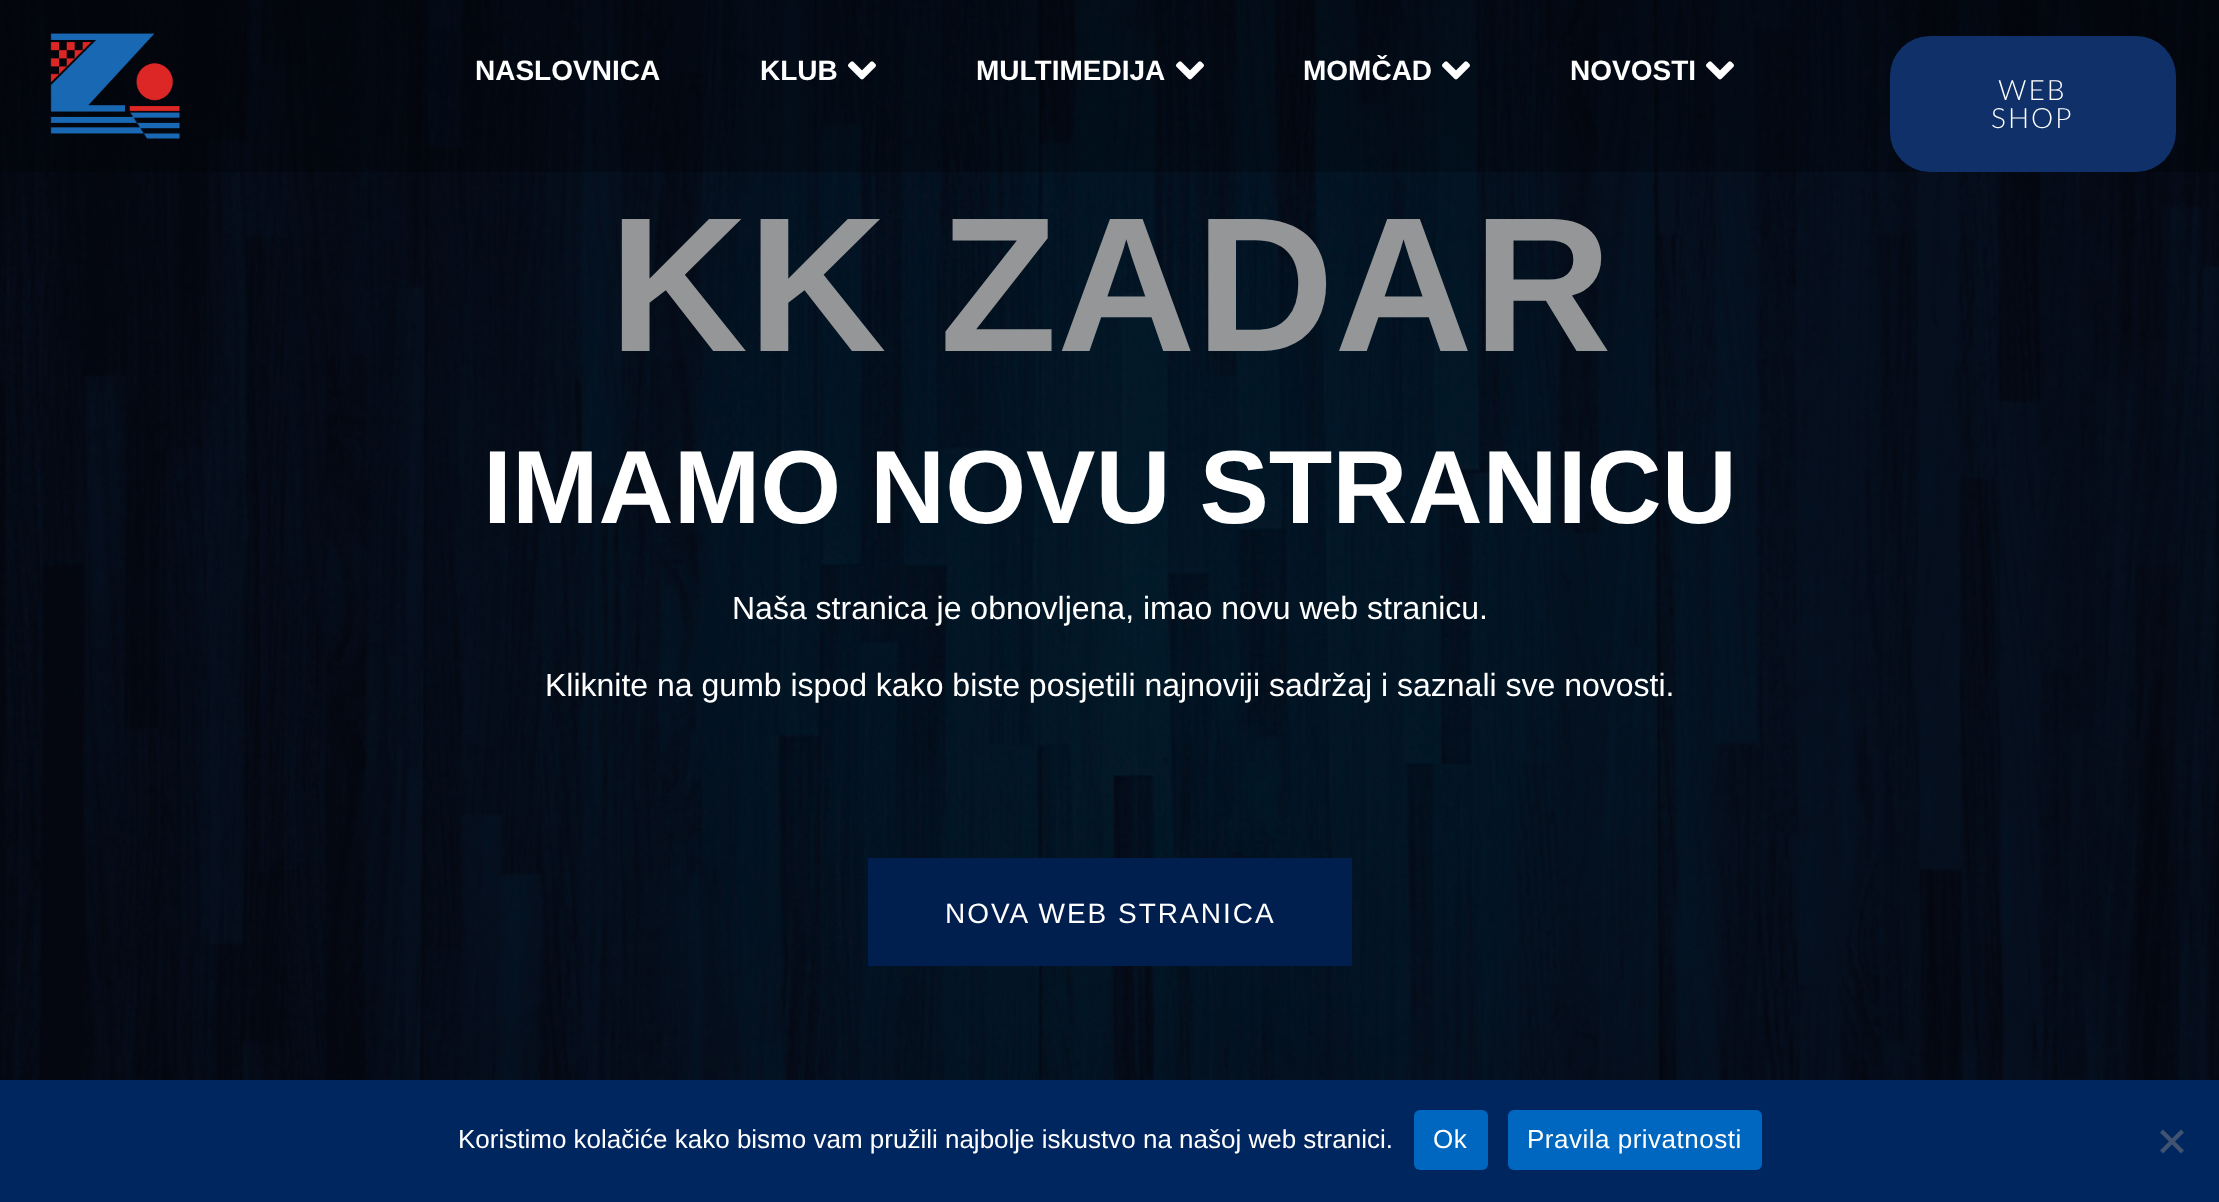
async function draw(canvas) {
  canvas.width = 2219;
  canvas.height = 1202;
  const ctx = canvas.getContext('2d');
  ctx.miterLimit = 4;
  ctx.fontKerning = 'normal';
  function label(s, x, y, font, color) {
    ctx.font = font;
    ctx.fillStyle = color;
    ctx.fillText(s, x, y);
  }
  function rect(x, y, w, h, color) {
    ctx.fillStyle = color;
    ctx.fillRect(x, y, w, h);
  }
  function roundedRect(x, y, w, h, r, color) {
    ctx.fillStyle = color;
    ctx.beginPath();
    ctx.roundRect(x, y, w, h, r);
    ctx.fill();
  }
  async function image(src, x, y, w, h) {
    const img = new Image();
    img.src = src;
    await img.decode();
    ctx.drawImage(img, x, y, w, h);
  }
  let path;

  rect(0, 0, 2219, 1202, '#fff');
  await image('assets/img6.png', 0, 0, 2219, 1080);
  rect(0, 0, 2219, 172, '#0000003d');
  await image('assets/img1.png', 50, 33, 130, 106);
  label('NASLOVNICA', 475, 80, 'bold 28px Liberation Sans', '#fff');
  label('KLUB', 760, 80, 'bold 28px Liberation Sans', '#fff');
  await image('assets/img2.png', 848, 61, 28, 19);
  label('MULTIMEDIJA', 976, 80, 'bold 28px Liberation Sans', '#fff');
  await image('assets/img3.png', 1176, 61, 28, 19);
  label('MOMČAD', 1303, 80, 'bold 28px Liberation Sans', '#fff');
  await image('assets/img4.png', 1442, 61, 28, 19);
  label('NOVOSTI', 1570, 80, 'bold 28px Liberation Sans', '#fff');
  await image('assets/img5.png', 1706, 61, 28, 19);
  roundedRect(1890, 36, 286, 136, 40, '#103069');
  ctx.letterSpacing = '2px';
  label('WEB', 1998, 100, '300 28px Lato', '#fff');
  label('SHOP', 1991, 128, '300 28px Lato', '#fff');
  ctx.letterSpacing = '0px';
  label('KK ZADAR', 609, 351, 'bold 192px Liberation Sans', '#959697');
  label('IMAMO NOVU STRANICU', 483, 523, 'bold 104px Liberation Sans', '#fff');
  label('Naša stranica je obnovljena, imao novu web stranicu.', 732, 619, '32px Liberation Sans', '#fff');
  label('Kliknite na gumb ispod kako biste posjetili najnoviji sadržaj i saznali sve novosti.', 545, 696, '32px Liberation Sans', '#fff');
  rect(868, 858, 484, 108, '#001e4e');
  ctx.letterSpacing = '2px';
  label('NOVA WEB STRANICA', 945, 923, '28px Liberation Sans', '#fff');
  rect(0, 1080, 2219, 122, '#002660');
  ctx.letterSpacing = '0px';
  label('Koristimo kolačiće kako bismo vam pružili najbolje iskustvo na našoj web stranici.', 458, 1148, '26px Liberation Sans', '#fff');
  roundedRect(1414, 1110, 74, 60, 6, '#0067c1');
  ctx.letterSpacing = '0.5px';
  label('Ok', 1433, 1148, '26px Liberation Sans', '#fff');
  roundedRect(1508, 1110, 254, 60, 6, '#0067c1');
  label('Pravila privatnosti', 1527, 1148, '26px Liberation Sans', '#fff');
  ctx.fillStyle = '#405370';
  path = new Path2D('M2181 1129.5L2184 1132.5L2163 1153.5L2160 1150.5Z');
  ctx.fill(path);
  path = new Path2D('M2160 1132.5L2163 1129.5L2184 1150.5L2181 1153.5Z');
  ctx.fill(path);
}

draw(document.querySelector('canvas'));
